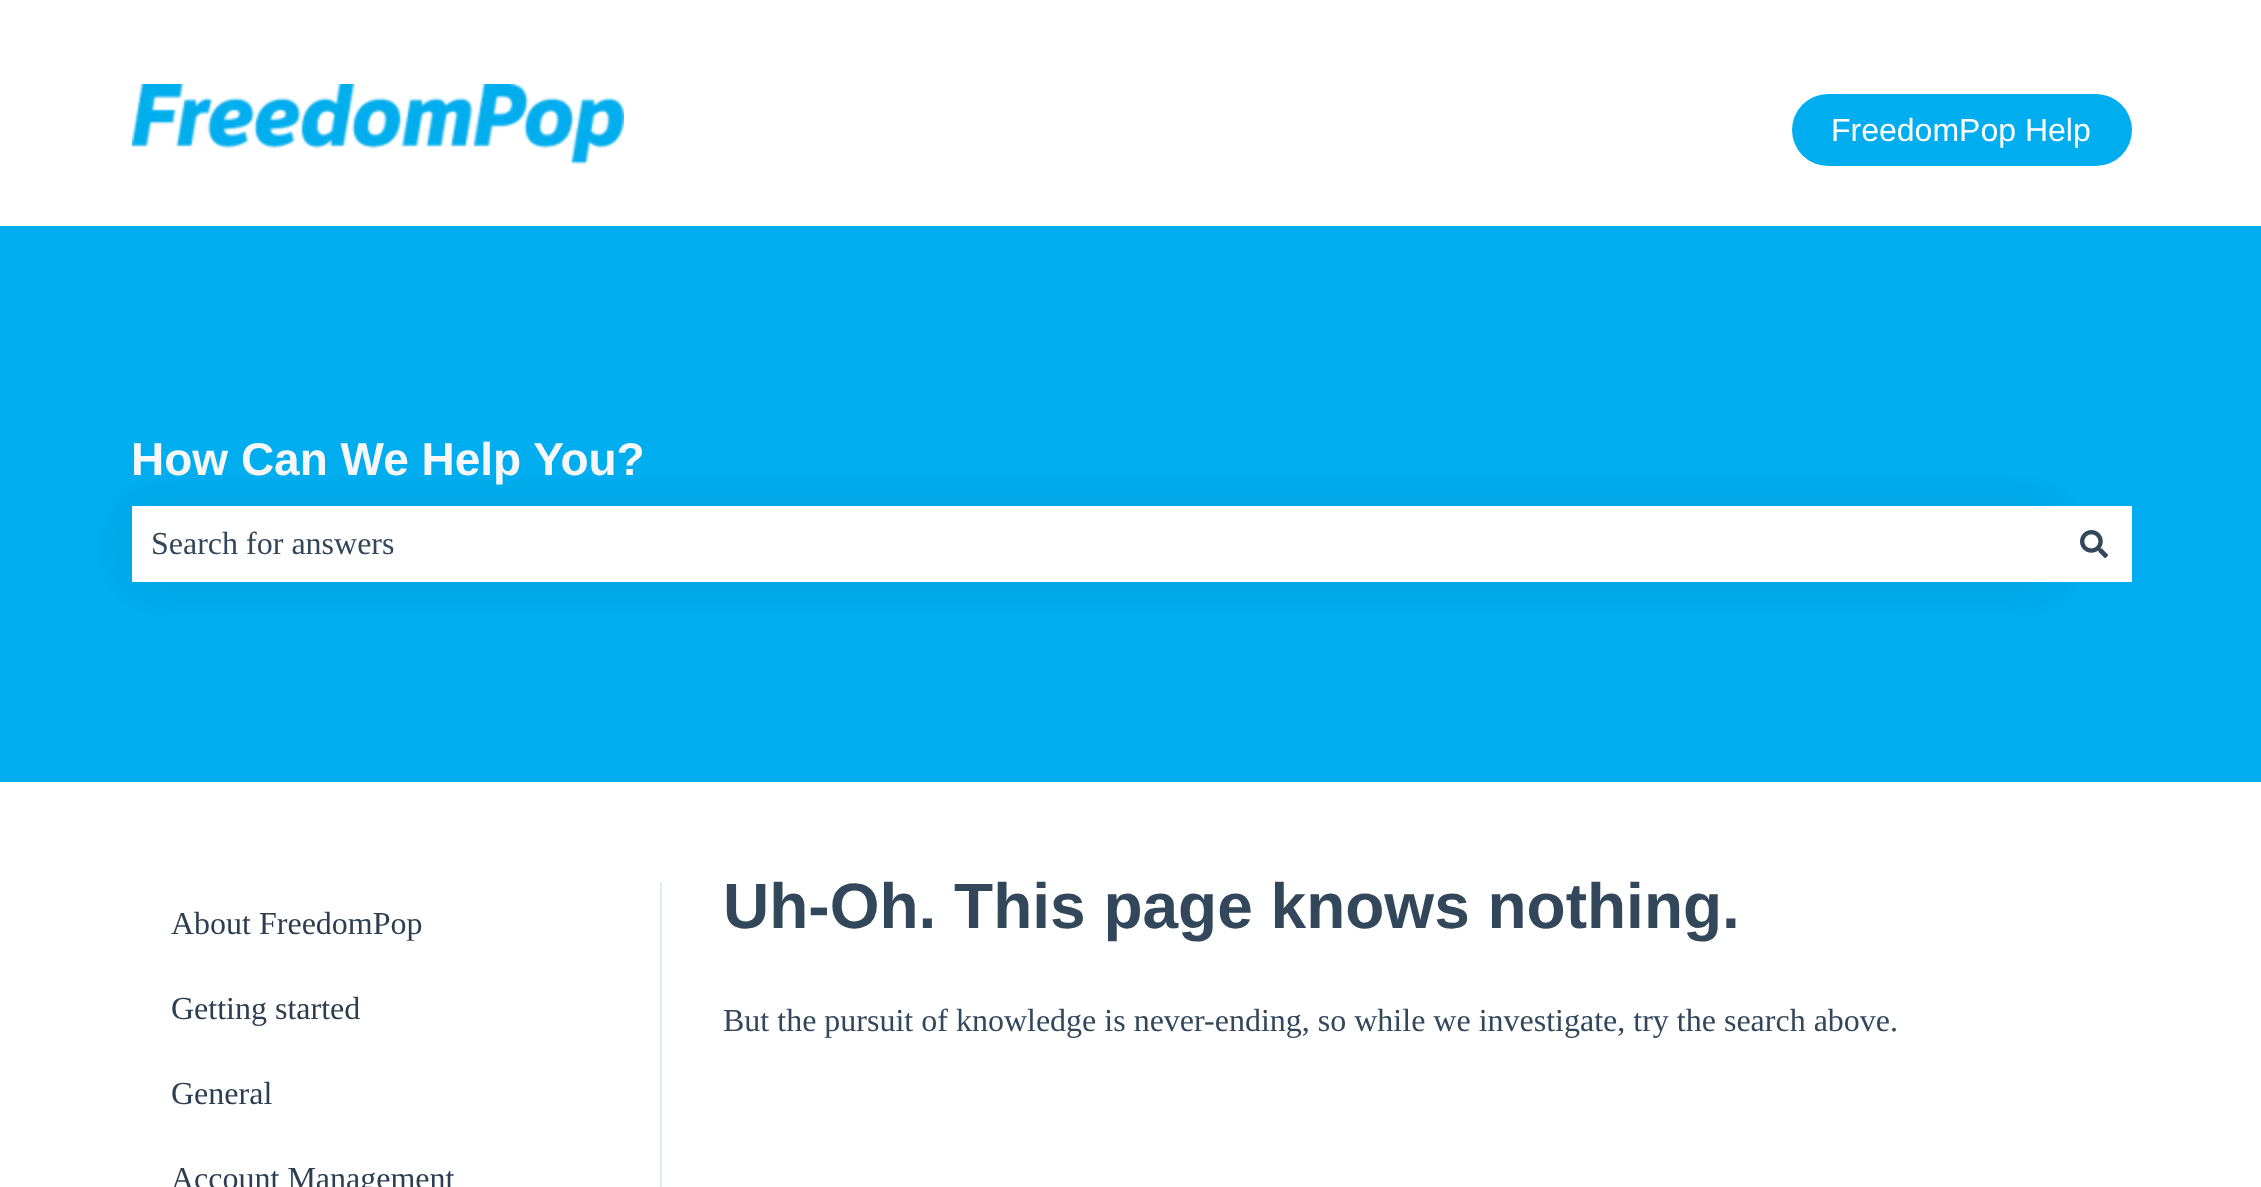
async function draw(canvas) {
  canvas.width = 2261;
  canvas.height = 1187;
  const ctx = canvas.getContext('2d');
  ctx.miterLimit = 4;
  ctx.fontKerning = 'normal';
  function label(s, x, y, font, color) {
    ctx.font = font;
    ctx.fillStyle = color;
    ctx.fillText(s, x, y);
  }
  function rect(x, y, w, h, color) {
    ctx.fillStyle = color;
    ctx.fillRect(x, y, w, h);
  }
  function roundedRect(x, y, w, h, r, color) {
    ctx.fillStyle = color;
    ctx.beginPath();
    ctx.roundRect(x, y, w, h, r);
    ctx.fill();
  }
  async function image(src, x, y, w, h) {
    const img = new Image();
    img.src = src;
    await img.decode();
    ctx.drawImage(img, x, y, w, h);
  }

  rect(0, 0, 2261, 1187, '#fff');
  await image('assets/img1.png', 132, 84, 492, 80);
  roundedRect(1792, 94, 340, 72, 36, '#00aeef');
  label('FreedomPop Help', 1831, 141, '32px Liberation Sans', '#fff');
  rect(0, 226, 2261, 556, '#00aeef');
  label('How Can We Help You?', 131, 475, 'bold 46px Liberation Sans', '#f7f7f7');
  ctx.fillStyle = '#00000014';
  ctx.filter = 'blur(24px)';
  ctx.beginPath();
  ctx.rect(132, 508, 1924, 76);
  ctx.fill();
  ctx.filter = 'none';
  rect(132, 506, 2000, 76, '#fff');
  label('Search for answers', 151, 554, '32px Liberation Serif', '#33475b');
  await image('assets/img2.png', 2080, 530, 28, 28);
  rect(660, 882, 2, 305, '#e2ebf4');
  label('About FreedomPop', 171, 934, '32px Liberation Serif', '#2d3e50');
  label('Getting started', 171, 1019, '32px Liberation Serif', '#2d3e50');
  label('General', 171, 1104, '32px Liberation Serif', '#2d3e50');
  label('Account Management', 171, 1189, '32px Liberation Serif', '#2d3e50');
  label('Uh-Oh. This page knows nothing.', 723, 928, 'bold 64px Liberation Sans', '#33475b');
  label('But the pursuit of knowledge is never-ending, so while we investigate, try the search above.', 723, 1031, '32px Liberation Serif', '#33475b');
}

draw(document.querySelector('canvas'));
